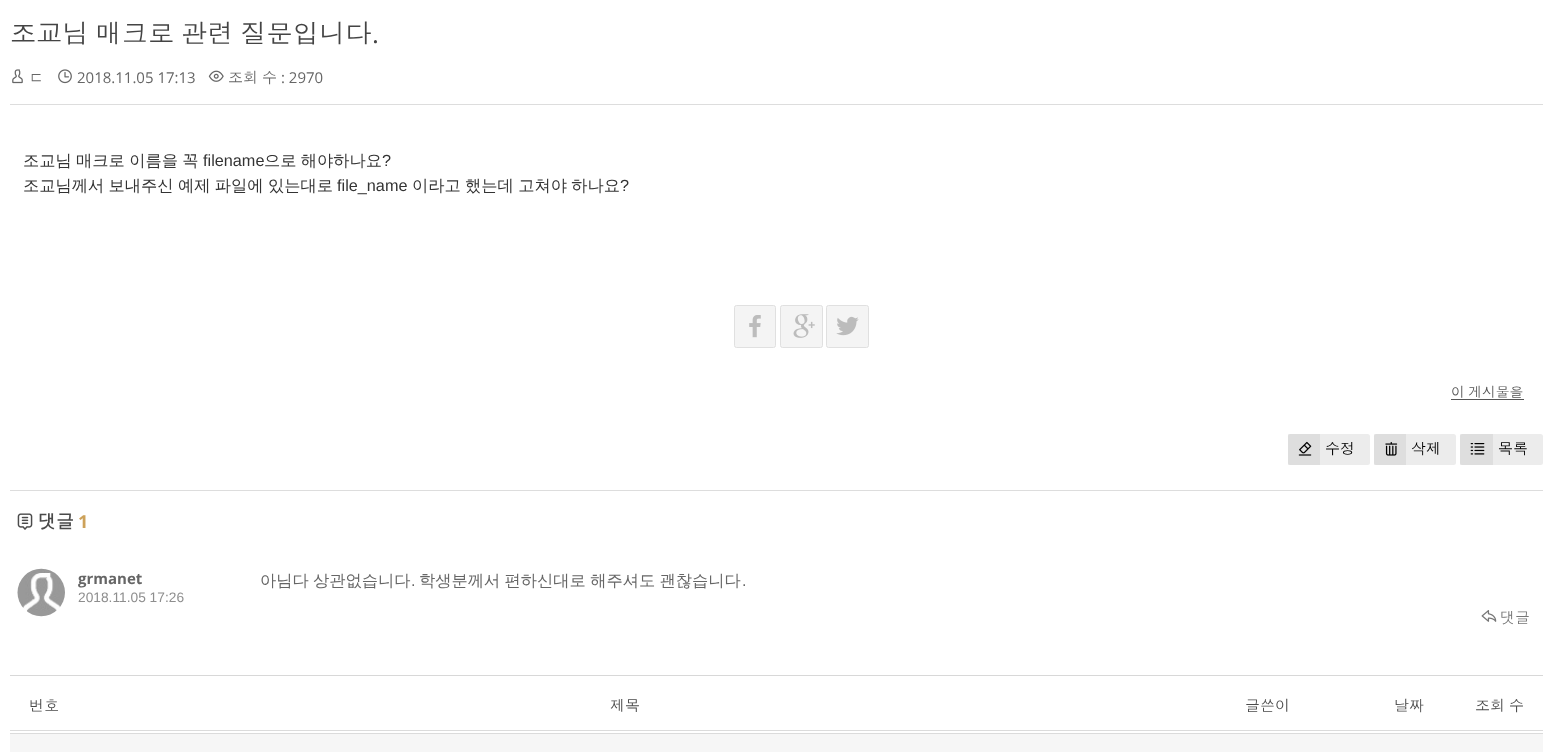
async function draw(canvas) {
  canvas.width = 1552;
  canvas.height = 752;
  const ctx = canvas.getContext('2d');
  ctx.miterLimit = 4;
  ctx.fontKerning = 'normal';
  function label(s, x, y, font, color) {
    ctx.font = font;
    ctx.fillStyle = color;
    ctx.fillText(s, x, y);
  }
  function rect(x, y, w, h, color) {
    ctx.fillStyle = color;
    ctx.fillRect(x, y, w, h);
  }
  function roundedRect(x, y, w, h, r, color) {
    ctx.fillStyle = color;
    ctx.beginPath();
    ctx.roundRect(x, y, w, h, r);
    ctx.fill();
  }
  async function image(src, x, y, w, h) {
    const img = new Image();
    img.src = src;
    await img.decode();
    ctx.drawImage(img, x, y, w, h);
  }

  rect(0, 0, 1552, 752, '#fff');
  ctx.wordSpacing = '-2px';
  label('조교님 매크로 관련 질문입니다', 10, 43, '26.25px Dotum', '#444');
  ctx.wordSpacing = '0px';
  label('.', 372, 43, '26.25px Open Sans', '#444');
  rect(10, 104, 1533, 1, '#ddd');
  await image('assets/img1.png', 12, 69, 11, 15);
  label('ㄷ', 29, 83, '15px Dotum', '#666');
  await image('assets/img2.png', 58, 69, 14, 15);
  label('2018.11.05 17:13', 77, 83, '15px Open Sans', '#666');
  await image('assets/img3.png', 208, 70, 16, 12);
  label('조회', 228, 83, '15px Dotum', '#666');
  label('수', 262, 83, '15px Dotum', '#666');
  label(': 2970', 281, 83, '15px Open Sans', '#666');
  ctx.wordSpacing = '-0.5px';
  label('조교님 매크로 이름을 꼭', 23, 166, '500 16.25px WenQuanYi Zen Hei', '#333');
  ctx.wordSpacing = '0px';
  label('filename', 203, 166, '16.25px Liberation Sans', '#333');
  ctx.wordSpacing = '-0.5px';
  label('으로 해야하나요', 264, 166, '500 16.25px WenQuanYi Zen Hei', '#333');
  ctx.wordSpacing = '0px';
  label('?', 382, 166, '16.25px Liberation Sans', '#333');
  ctx.wordSpacing = '-0.5px';
  label('조교님께서 보내주신 예제 파일에 있는대로', 23, 191, '500 16.25px WenQuanYi Zen Hei', '#333');
  ctx.wordSpacing = '0px';
  label('file_name', 337, 191, '16.25px Liberation Sans', '#333');
  ctx.wordSpacing = '-0.5px';
  label('이라고 했는데 고쳐야 하나요', 412, 191, '500 16.25px WenQuanYi Zen Hei', '#333');
  ctx.wordSpacing = '0px';
  label('?', 620, 191, '16.25px Liberation Sans', '#333');
  ctx.fillStyle = '#f4f4f4';
  ctx.beginPath();
  ctx.roundRect(734.5, 305.5, 41, 42, 2);
  ctx.fill();
  ctx.strokeStyle = '#e0e0e0';
  ctx.stroke();
  await image('assets/img4.png', 749, 315, 12, 23);
  ctx.beginPath();
  ctx.roundRect(780.5, 305.5, 42, 42, 2);
  ctx.fill();
  ctx.stroke();
  await image('assets/img5.png', 793, 314, 22, 24);
  ctx.beginPath();
  ctx.roundRect(826.5, 305.5, 42, 42, 2);
  ctx.fill();
  ctx.stroke();
  await image('assets/img6.png', 836, 316, 23, 20);
  ctx.wordSpacing = '-1px';
  label('이 게시물을', 1451, 397, '13.75px Dotum', '#555');
  rect(1451, 399, 73, 1, '#555');
  roundedRect(1288, 434, 82, 31, 2.5, '#ececec');
  rect(1288, 434, 32, 31, '#0000000f');
  await image('assets/img7.png', 1298, 441, 14, 15);
  ctx.wordSpacing = '0px';
  label('수정', 1325, 454, '15px Dotum', '#000');
  roundedRect(1374, 434, 82, 31, 2.5, '#ececec');
  rect(1374, 434, 32, 31, '#0000000f');
  await image('assets/img8.png', 1385, 442, 13, 14);
  label('삭제', 1411, 454, '15px Dotum', '#000');
  roundedRect(1460, 434, 83, 31, 2.5, '#ececec');
  rect(1460, 434, 33, 31, '#0000000f');
  await image('assets/img9.png', 1470, 443, 15, 12);
  label('목록', 1498, 454, '15px Dotum', '#000');
  rect(10, 490, 1533, 1, '#ddd');
  await image('assets/img10.png', 17, 513, 16, 17);
  label('댓글', 38, 528, 'bold 18px Dotum', '#4a4a4a');
  label('1', 78, 528, 'bold 18px Open Sans', '#cda25a');
  await image('assets/img11.png', 17, 568, 48, 49);
  label('grmanet', 78, 584, 'bold 15px Open Sans', '#666');
  label('2018.11.05 17:26', 78, 602, '13.75px Liberation Sans', '#8e8e8e');
  ctx.wordSpacing = '-0.5px';
  label('아님다 상관없습니다', 260, 586, '500 16.25px WenQuanYi Zen Hei', '#666');
  ctx.wordSpacing = '0px';
  label('.', 411, 586, '16.25px Liberation Sans', '#666');
  ctx.wordSpacing = '-0.5px';
  label('학생분께서 편하신대로 해주셔도 괜찮습니다', 419, 586, '500 16.25px WenQuanYi Zen Hei', '#666');
  ctx.wordSpacing = '0px';
  label('.', 742, 586, '16.25px Liberation Sans', '#666');
  await image('assets/img12.png', 1481, 610, 16, 12);
  label('댓글', 1500, 623, '15px Dotum', '#767676');
  rect(10, 675, 1533, 1, '#d8d8d8');
  rect(10, 730, 1533, 1, '#dbdbdb');
  rect(10, 733, 1533, 1, '#dbdbdb');
  label('번호', 29, 711, '15px Dotum', '#4a4a4a');
  label('제목', 610, 711, '15px Dotum', '#4a4a4a');
  label('글쓴이', 1245, 711, '15px Dotum', '#4a4a4a');
  label('날짜', 1394, 711, '15px Dotum', '#4a4a4a');
  ctx.wordSpacing = '-1px';
  label('조회 수', 1475, 711, '15px Dotum', '#4a4a4a');
  rect(10, 734, 1533, 18, '#f6f6f6');
}

draw(document.querySelector('canvas'));
